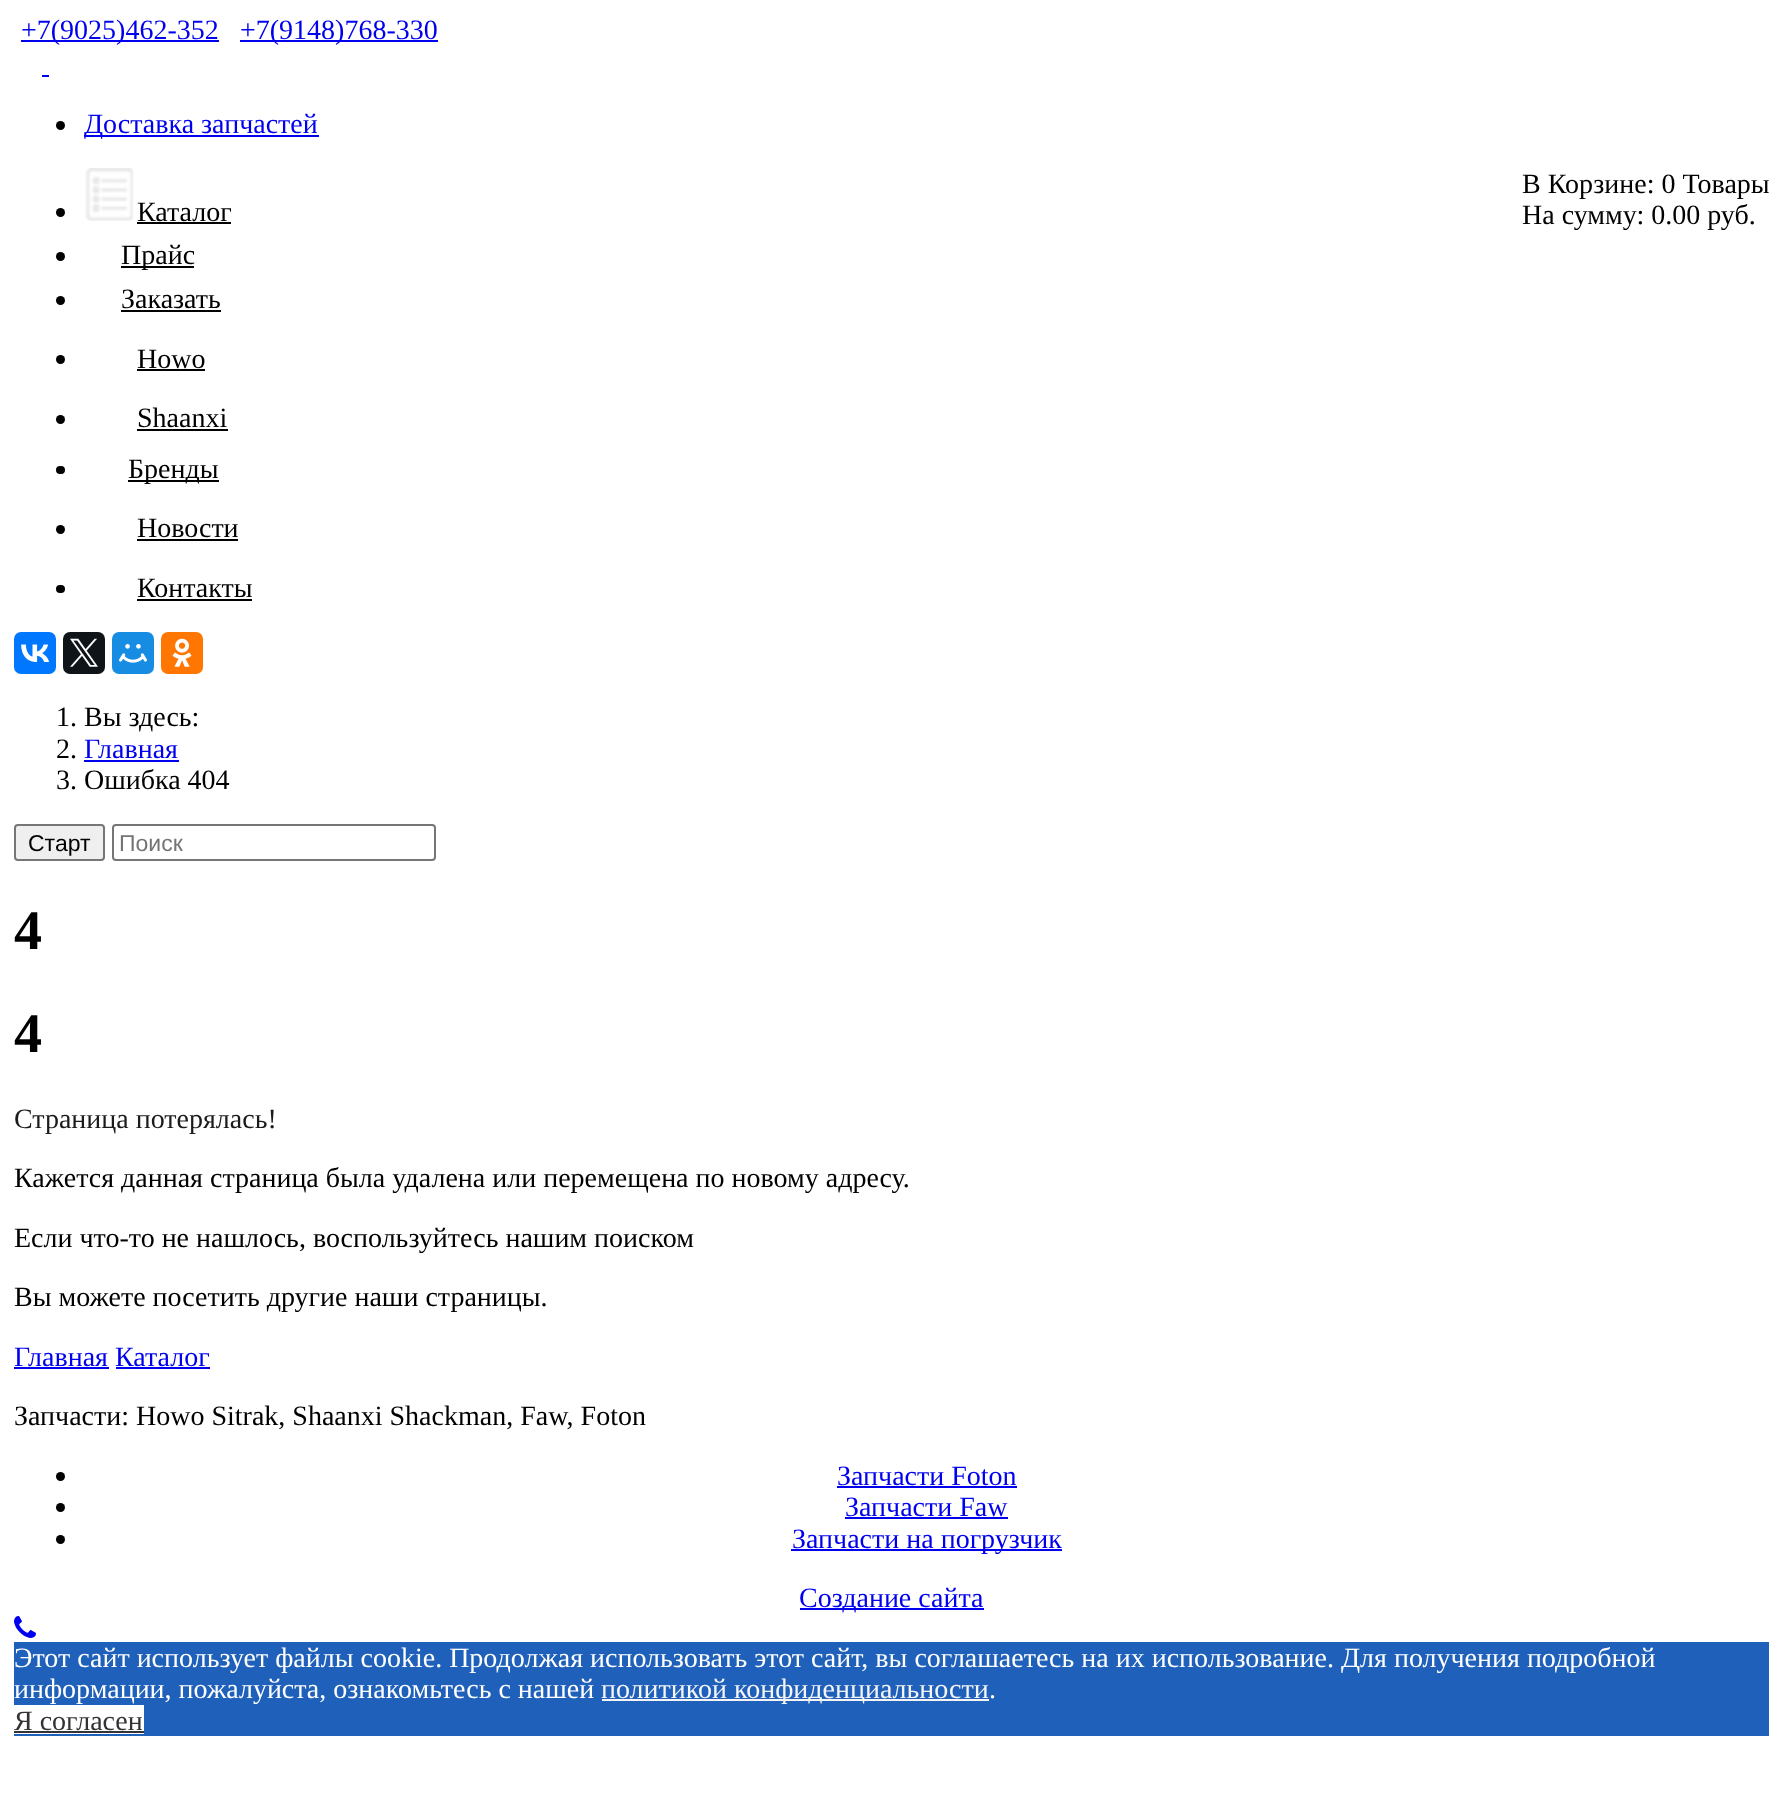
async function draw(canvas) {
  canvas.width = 1782;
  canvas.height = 1804;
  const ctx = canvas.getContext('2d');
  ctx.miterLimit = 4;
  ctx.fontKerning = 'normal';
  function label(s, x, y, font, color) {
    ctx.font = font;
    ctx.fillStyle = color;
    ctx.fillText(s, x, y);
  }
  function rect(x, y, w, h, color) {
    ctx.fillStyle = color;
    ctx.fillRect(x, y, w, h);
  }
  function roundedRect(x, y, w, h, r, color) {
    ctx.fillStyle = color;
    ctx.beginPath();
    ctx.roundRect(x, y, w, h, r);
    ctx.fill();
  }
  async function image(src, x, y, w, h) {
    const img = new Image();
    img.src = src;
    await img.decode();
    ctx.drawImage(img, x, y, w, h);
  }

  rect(0, 0, 1782, 1804, '#fff');
  rect(21, 40, 198, 2, '#00e');
  label('+7(9025)462-352', 21, 39, '28px Liberation Serif', '#00e');
  rect(240, 40, 198, 2, '#00e');
  label('+7(9148)768-330', 240, 39, '28px Liberation Serif', '#00e');
  rect(42, 75, 7, 2, '#00e');
  ctx.fillStyle = '#000';
  ctx.beginPath();
  ctx.arc(60.5, 125.5, 4.5, 0, 2 * Math.PI);
  ctx.fill();
  rect(84, 135, 235, 2, '#00e');
  label('Доставка запчастей', 84, 133, '28px Liberation Serif', '#00e');
  ctx.fillStyle = '#000';
  ctx.beginPath();
  ctx.arc(60.5, 212.5, 4.5, 0, 2 * Math.PI);
  ctx.fill();
  await image('assets/img1.png', 85, 168, 49, 53);
  label('Каталог', 137, 221, '28px Liberation Serif', '#000');
  rect(137, 222, 94, 2, '#000');
  ctx.beginPath();
  ctx.arc(60.5, 256.5, 4.5, 0, 2 * Math.PI);
  ctx.fill();
  rect(121, 266, 73, 2, '#000');
  label('Прайс', 121, 264, '28px Liberation Serif', '#000');
  ctx.beginPath();
  ctx.arc(60.5, 300.5, 4.5, 0, 2 * Math.PI);
  ctx.fill();
  label('Заказать', 121, 308, '28px Liberation Serif', '#000');
  rect(121, 310, 100, 2, '#000');
  ctx.beginPath();
  ctx.arc(60.5, 359.5, 4.5, 0, 2 * Math.PI);
  ctx.fill();
  label('Howo', 137, 368, '28px Liberation Serif', '#000');
  rect(137, 369, 68, 2, '#000');
  ctx.beginPath();
  ctx.arc(60.5, 419.5, 4.5, 0, 2 * Math.PI);
  ctx.fill();
  label('Shaanxi', 137, 427, '28px Liberation Serif', '#000');
  rect(137, 429, 91, 2, '#000');
  roundedRect(56, 466, 9, 8, 4, '#000');
  rect(128, 480, 91, 2, '#000');
  label('Бренды', 128, 478, '28px Liberation Serif', '#000');
  ctx.beginPath();
  ctx.arc(60.5, 529.5, 4.5, 0, 2 * Math.PI);
  ctx.fill();
  label('Новости', 137, 537, '28px Liberation Serif', '#000');
  rect(137, 539, 101, 2, '#000');
  roundedRect(56, 585, 9, 8, 4, '#000');
  label('Контакты', 137, 597, '28px Liberation Serif', '#000');
  rect(137, 599, 115, 2, '#000');
  label('В Корзине: 0 Товары', 1522, 193, '28px Liberation Serif', '#000');
  label('На сумму: 0.00 руб.', 1522, 224, '28px Liberation Serif', '#000');
  roundedRect(14, 632, 42, 42, 7, '#07f');
  await image('assets/img2.png', 21, 644, 28, 18);
  roundedRect(63, 632, 42, 42, 7, '#0f1419');
  await image('assets/img3.png', 70, 638, 28, 29);
  roundedRect(112, 632, 42, 42, 7, '#168de2');
  await image('assets/img4.png', 119, 644, 28, 19);
  roundedRect(161, 632, 42, 42, 7, '#f70');
  await image('assets/img5.png', 172, 638, 20, 29);
  label('1. Вы здесь:', 56, 726, '28px Liberation Serif', '#000');
  label('2.', 56, 758, '28px Liberation Serif', '#000');
  label('Главная', 84, 758, '28px Liberation Serif', '#00e');
  rect(84, 760, 95, 2, '#00e');
  label('3. Ошибка 404', 56, 789, '28px Liberation Serif', '#000');
  ctx.fillStyle = '#efefef';
  ctx.beginPath();
  ctx.roundRect(15, 825, 89, 35, 3);
  ctx.fill();
  ctx.strokeStyle = '#767676';
  ctx.lineWidth = 2;
  ctx.stroke();
  label('Старт', 28, 851, '23px Liberation Sans', '#000');
  ctx.beginPath();
  ctx.roundRect(113, 825, 322, 35, 3);
  ctx.stroke();
  label('Поиск', 119, 851, '23px Liberation Sans', '#757575');
  label('4', 14, 949, 'bold 56px Liberation Serif', '#000');
  label('4', 14, 1052, 'bold 56px Liberation Serif', '#000');
  label('Страница потерялась!', 14, 1128, '28px Liberation Serif', '#1b1b1b');
  label('Кажется данная страница была удалена или перемещена по новому адресу.', 14, 1187, '28px Liberation Serif', '#000');
  label('Если что-то не нашлось, воспользуйтесь нашим поиском', 14, 1247, '28px Liberation Serif', '#000');
  label('Вы можете посетить другие наши страницы.', 14, 1306, '28px Liberation Serif', '#000');
  label('Главная Каталог', 14, 1366, '28px Liberation Serif', '#00e');
  rect(14, 1367, 95, 2, '#00e');
  rect(116, 1367, 94, 2, '#00e');
  label('Запчасти: Howo Sitrak, Shaanxi Shackman, Faw, Foton', 14, 1425, '28px Liberation Serif', '#000');
  ctx.beginPath();
  ctx.arc(60.5, 1476.5, 4.5, 0, 2 * Math.PI);
  ctx.fill();
  label('Запчасти Foton', 837, 1485, '28px Liberation Serif', '#00e');
  rect(837, 1486, 180, 2, '#00e');
  ctx.fillStyle = '#000';
  ctx.beginPath();
  ctx.arc(60.5, 1507.5, 4.5, 0, 2 * Math.PI);
  ctx.fill();
  label('Запчасти Faw', 845, 1516, '28px Liberation Serif', '#00e');
  rect(845, 1517, 163, 2, '#00e');
  ctx.fillStyle = '#000';
  ctx.beginPath();
  ctx.arc(60.5, 1539.5, 4.5, 0, 2 * Math.PI);
  ctx.fill();
  rect(791, 1549, 271, 2, '#00e');
  label('Запчасти на погрузчик', 792, 1548, '28px Liberation Serif', '#00e');
  rect(800, 1608, 184, 2, '#00e');
  label('Создание сайта', 799, 1607, '28px Liberation Serif', '#00e');
  await image('assets/img6.png', 14, 1616, 22, 22);
  rect(14, 1642, 1755, 94, '#1f60ba');
  label('Этот сайт использует файлы cookie. Продолжая использовать этот сайт, вы соглашаетесь на их использование. Для получения подробной', 14, 1667, '28px Liberation Serif', '#fff');
  label('информации, пожалуйста, ознакомьтесь с нашей', 14, 1698, '28px Liberation Serif', '#fff');
  rect(602, 1699, 387, 2, '#f5f5f5');
  label('политикой конфиденциальности', 601, 1698, '28px Liberation Serif', '#f5f5f5');
  label('.', 989, 1698, '28px Liberation Serif', '#fff');
  rect(14, 1705, 130, 29, '#fff');
  label('Я согласен', 14, 1730, '28px Liberation Serif', '#333');
  rect(14, 1731, 130, 2, '#333');
}

draw(document.querySelector('canvas'));
